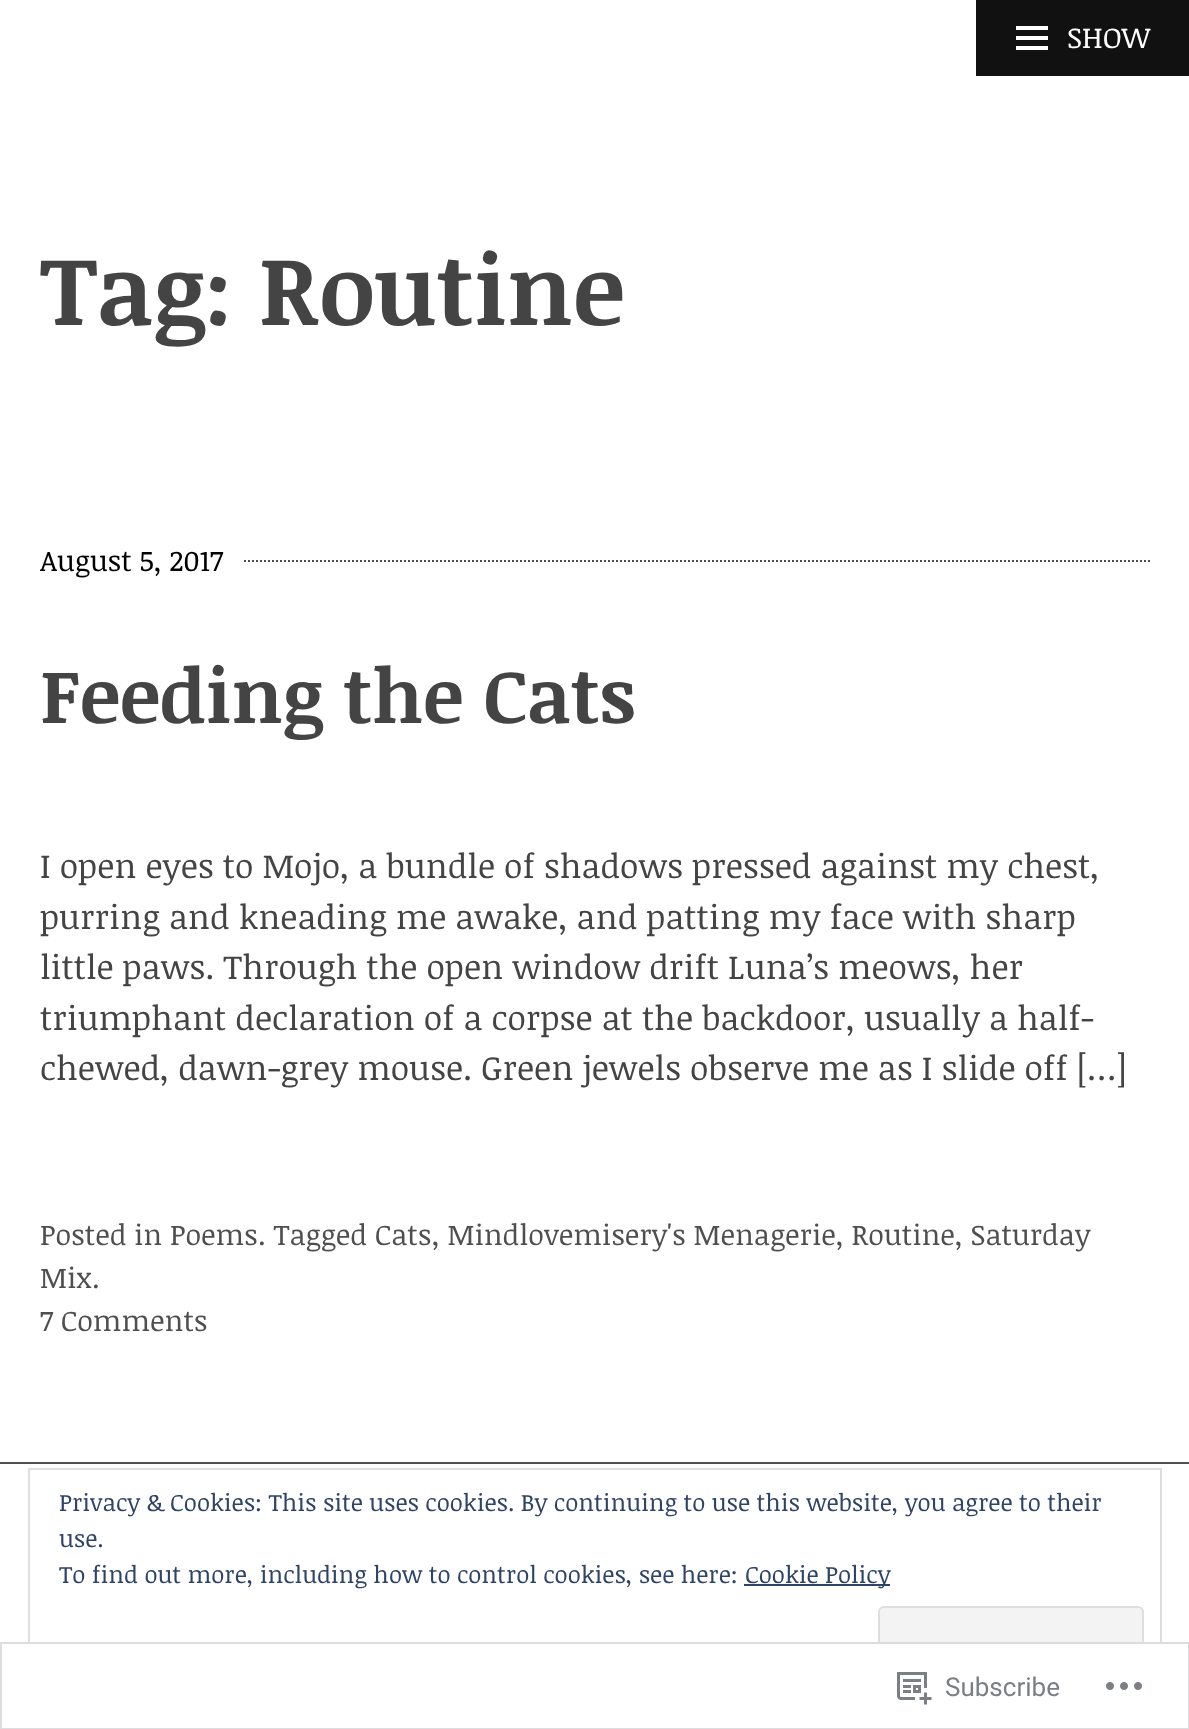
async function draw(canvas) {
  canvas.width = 1189;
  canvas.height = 1729;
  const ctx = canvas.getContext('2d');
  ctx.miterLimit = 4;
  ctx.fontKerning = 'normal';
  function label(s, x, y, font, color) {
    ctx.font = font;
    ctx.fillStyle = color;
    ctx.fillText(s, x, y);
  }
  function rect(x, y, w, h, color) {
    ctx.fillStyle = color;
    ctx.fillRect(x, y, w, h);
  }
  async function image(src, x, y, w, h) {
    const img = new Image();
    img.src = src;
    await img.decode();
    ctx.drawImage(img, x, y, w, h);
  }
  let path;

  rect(0, 0, 1189, 1729, '#fff');
  rect(976, 0, 213, 76, '#111');
  await image('assets/img1.png', 1016, 26, 32, 24);
  label('SHOW', 1067, 48, '29px Noticia Text', '#fff');
  label('Tag: Routine', 40, 325, 'bold 97.25px Noticia Text', '#444');
  path = new Path2D('M40 561H1150');
  ctx.strokeStyle = '#4f4f4f';
  ctx.lineWidth = 2;
  ctx.setLineDash([2, 2]);
  ctx.stroke(path);
  rect(40, 560, 202, 2, '#fff');
  label('August 5, 2017', 40, 571, '28.75px Noticia Text', '#000');
  label('Feeding the Cats', 40, 723, 'bold 75.75px Noticia Text', '#444');
  label('I open eyes to Mojo, a bundle of shadows pressed against my chest,', 40, 878, '33.75px Noticia Text', '#444');
  label('purring and kneading me awake, and patting my face with sharp', 40, 929, '33.75px Noticia Text', '#444');
  label('little paws. Through the open window drift Luna’s meows, her', 40, 979, '33.75px Noticia Text', '#444');
  label('triumphant declaration of a corpse at the backdoor, usually a half-', 40, 1030, '33.75px Noticia Text', '#444');
  label('chewed, dawn-grey mouse. Green jewels observe me as I slide off […]', 40, 1080, '33.75px Noticia Text', '#444');
  label('Posted in Poems', 40, 1245, '28.75px Noticia Text', '#4f4f4f');
  label('. Tagged Cats', 258, 1245, '28.75px Noticia Text', '#4f4f4f');
  label(', Mindlovemisery\'s Menagerie', 432, 1245, '28.75px Noticia Text', '#4f4f4f');
  label(', Routine', 836, 1245, '28.75px Noticia Text', '#4f4f4f');
  label(', Saturday', 955, 1245, '28.75px Noticia Text', '#4f4f4f');
  label('Mix', 40, 1288, '28.75px Noticia Text', '#4f4f4f');
  label('.', 92, 1288, '28.75px Noticia Text', '#4f4f4f');
  label('7 Comments', 40, 1331, '28.75px Noticia Text', '#4f4f4f');
  rect(0, 1462, 1189, 2, '#4f4f4f');
  ctx.strokeStyle = '#dedede';
  ctx.setLineDash([]);
  ctx.strokeRect(29, 1469, 1132, 232);
  label('Privacy & Cookies: This site uses cookies. By continuing to use this website, you agree to their', 59, 1511, '24px Noticia Text', '#2e4467');
  label('use.', 59, 1547, '24px Noticia Text', '#2e4467');
  label('To find out more, including how to control cookies, see here:', 59, 1583, '24px Noticia Text', '#2e4467');
  rect(744, 1584, 146, 2, '#2e4467');
  label('Cookie Policy', 745, 1583, '24px Noticia Text', '#2e4467');
  ctx.fillStyle = '#f3f3f3';
  ctx.beginPath();
  ctx.roundRect(879, 1607, 264, 76, 5);
  ctx.fill();
  ctx.stroke();
  rect(28, 1642, 1134, 60, '#fffffffa');
  ctx.strokeStyle = '#dcdcdefa';
  ctx.strokeRect(1, 1643, 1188, 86);
  await image('assets/img2.png', 897, 1672, 35, 33);
  label('Subscribe', 945, 1696, '26px Roboto', '#7b7f84');
  await image('assets/img3.png', 1106, 1682, 36, 8);
}

draw(document.querySelector('canvas'));
